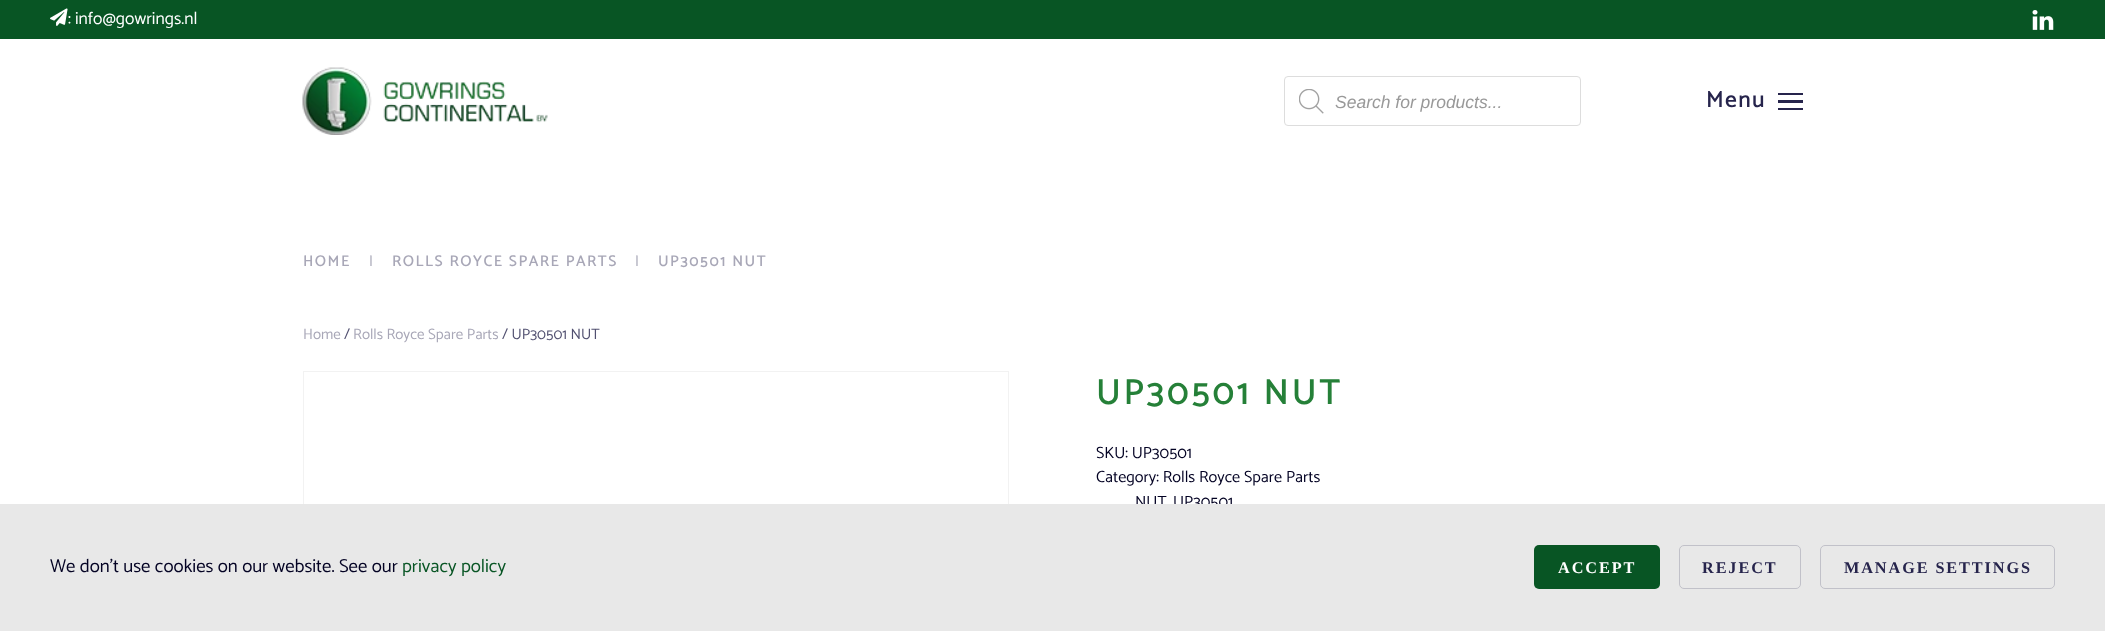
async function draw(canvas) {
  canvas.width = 2105;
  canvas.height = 631;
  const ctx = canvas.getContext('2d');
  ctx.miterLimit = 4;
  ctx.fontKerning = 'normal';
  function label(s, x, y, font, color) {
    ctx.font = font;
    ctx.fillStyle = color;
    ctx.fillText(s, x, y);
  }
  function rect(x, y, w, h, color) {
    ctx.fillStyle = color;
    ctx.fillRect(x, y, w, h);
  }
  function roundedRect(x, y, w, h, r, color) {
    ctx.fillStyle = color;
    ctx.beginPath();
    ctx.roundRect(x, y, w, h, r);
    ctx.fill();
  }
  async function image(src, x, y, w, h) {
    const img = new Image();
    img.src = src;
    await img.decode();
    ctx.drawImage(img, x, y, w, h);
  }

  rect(0, 0, 2105, 631, '#fff');
  rect(0, 0, 2105, 39, '#085524');
  await image('assets/img1.png', 50, 8, 18, 18);
  label(': info@gowrings.nl', 68, 24, '100 17.5px Catamaran', '#fff');
  await image('assets/img2.png', 2032, 10, 22, 20);
  await image('assets/img3.png', 302, 67, 246, 68);
  ctx.beginPath();
  ctx.roundRect(1284.5, 76.5, 296, 49, 3.5);
  ctx.strokeStyle = '#ddd';
  ctx.stroke();
  await image('assets/img4.png', 1299, 89, 25, 25);
  label('Search for products...', 1335, 108, 'italic 17.5px Liberation Sans', '#999');
  ctx.letterSpacing = '1.9px';
  label('Menu', 1706, 107, 'bold 22.5px Catamaran', '#26244c');
  rect(1778, 93, 25, 2, '#26244c');
  rect(1778, 100, 25, 3, '#26244c');
  rect(1778, 108, 25, 2, '#26244c');
  label('HOME', 303, 266, 'bold 15px Catamaran', '#a8a7b7');
  ctx.letterSpacing = '0px';
  label('|', 369, 266, '100 15px Catamaran', '#a8a7b7');
  ctx.letterSpacing = '1.9px';
  label('ROLLS ROYCE SPARE PARTS', 392, 266, 'bold 15px Catamaran', '#a8a7b7');
  ctx.letterSpacing = '0px';
  label('|', 635, 266, '100 15px Catamaran', '#a8a7b7');
  ctx.letterSpacing = '1.9px';
  label('UP30501 NUT', 658, 266, 'bold 15px Catamaran', '#a8a7b7');
  ctx.letterSpacing = '0px';
  label('Home', 303, 339, '100 15px Catamaran', '#a8a7b7');
  label('/', 344, 339, '100 15px Catamaran', '#515070');
  label('Rolls Royce Spare Parts', 353, 339, '100 15px Catamaran', '#a8a7b7');
  label('/ UP30501 NUT', 502, 339, '100 15px Catamaran', '#515070');
  ctx.strokeStyle = '#f2f2f2';
  ctx.strokeRect(303.5, 371.5, 705, 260);
  ctx.letterSpacing = '3.75px';
  label('UP30501 NUT', 1096, 404, 'bold 35px Catamaran', '#258038');
  ctx.letterSpacing = '0px';
  label('SKU: UP30501', 1096, 458, '100 16.25px Catamaran', '#030223');
  label('Category: Rolls Royce Spare Parts', 1096, 482, '100 16.25px Catamaran', '#030223');
  label('NUT', 1135, 507, '100 16.25px Catamaran', '#030223');
  label('UP30501', 1173, 507, '100 16.25px Catamaran', '#030223');
  rect(0, 504, 2105, 127, '#e8e8e8');
  label('We don\'t use cookies on our website. See our', 50, 572, '100 18.75px Catamaran', '#030223');
  label('privacy policy', 402, 572, '100 18.75px Catamaran', '#085524');
  roundedRect(1534, 545, 126, 44, 5, '#085524');
  ctx.letterSpacing = '1.9px';
  label('ACCEPT', 1558, 573, 'bold 16.25px Liberation Serif', '#fff');
  ctx.beginPath();
  ctx.roundRect(1679.5, 545.5, 121, 43, 4.5);
  ctx.strokeStyle = '#c1c1c9';
  ctx.stroke();
  label('REJECT', 1702, 573, 'bold 16.25px Liberation Serif', '#26244c');
  ctx.beginPath();
  ctx.roundRect(1820.5, 545.5, 234, 43, 4.5);
  ctx.stroke();
  label('MANAGE SETTINGS', 1844, 573, 'bold 16.25px Liberation Serif', '#26244c');
}

draw(document.querySelector('canvas'));
